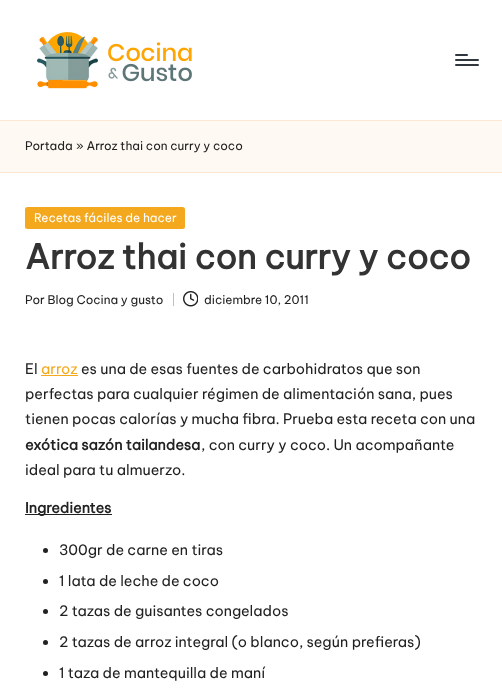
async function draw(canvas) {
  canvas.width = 502;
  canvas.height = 699;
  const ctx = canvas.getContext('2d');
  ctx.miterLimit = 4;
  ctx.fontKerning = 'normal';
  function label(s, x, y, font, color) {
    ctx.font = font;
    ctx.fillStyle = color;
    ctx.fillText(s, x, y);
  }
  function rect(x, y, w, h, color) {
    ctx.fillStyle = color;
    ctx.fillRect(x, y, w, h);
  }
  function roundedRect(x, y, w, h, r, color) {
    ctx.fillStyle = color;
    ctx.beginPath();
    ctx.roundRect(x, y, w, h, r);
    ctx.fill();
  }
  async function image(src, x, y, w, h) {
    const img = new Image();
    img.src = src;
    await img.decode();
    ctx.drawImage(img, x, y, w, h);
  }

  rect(0, 0, 502, 699, '#fff');
  await image('assets/img1.png', 37, 32, 155, 57);
  roundedRect(455, 59, 24, 2, 1, '#30373e');
  roundedRect(455, 54, 13, 2, 1, '#30373e');
  roundedRect(455, 64, 24, 2, 1, '#30373e');
  rect(0, 121, 502, 51, '#fff9f3');
  rect(0, 120, 502, 1, '#ffe7d2');
  rect(0, 172, 502, 1, '#ffe7d2');
  label('Portada', 25, 150, '11.9px Be Vietnam Pro', '#212121');
  label('» Arroz thai con curry y coco', 76, 150, '11.9px Be Vietnam Pro', '#212121');
  roundedRect(25, 207, 160, 22, 2.5, '#f3a81e');
  label('Recetas fáciles de hacer', 34, 222, '11.9px Be Vietnam Pro', '#fff');
  label('Arroz thai con curry y coco', 25, 269, 'bold 33.9px Be Vietnam Pro', '#333');
  label('Por Blog Cocina y gusto', 25, 304, '11.9px Be Vietnam Pro', '#212121');
  rect(173, 293, 1, 13, '#bfbfbf');
  await image('assets/img2.png', 183, 291, 15, 16);
  label('diciembre 10, 2011', 204, 304, '11.9px Be Vietnam Pro', '#212121');
  label('El', 25, 374, '14.4px Be Vietnam Pro', '#212121');
  label('arroz', 41, 374, '14.4px Be Vietnam Pro', '#f3a81e');
  rect(41, 375, 37, 1, '#f3a81e');
  label('es una de esas fuentes de carbohidratos que son', 81, 374, '14.4px Be Vietnam Pro', '#212121');
  label('perfectas para cualquier régimen de alimentación sana, pues', 25, 399, '14.4px Be Vietnam Pro', '#212121');
  label('tienen pocas calorías y mucha fibra. Prueba esta receta con una', 25, 424, '14.4px Be Vietnam Pro', '#212121');
  label('exótica sazón tailandesa', 25, 450, 'bold 14.4px Be Vietnam Pro', '#212121');
  label(', con curry y coco. Un acompañante', 201, 450, '14.4px Be Vietnam Pro', '#212121');
  label('ideal para tu almuerzo.', 25, 475, '14.4px Be Vietnam Pro', '#212121');
  rect(25, 514, 87, 1, '#212121');
  label('Ingredientes', 25, 513, 'bold 14.4px Be Vietnam Pro', '#212121');
  ctx.beginPath();
  ctx.arc(45.5, 550.5, 2.5, 0, 2 * Math.PI);
  ctx.fill();
  label('300gr de carne en tiras', 59, 555, '14.4px Be Vietnam Pro', '#212121');
  ctx.beginPath();
  ctx.arc(45.5, 581.5, 2.5, 0, 2 * Math.PI);
  ctx.fill();
  label('1 lata de leche de coco', 59, 586, '14.4px Be Vietnam Pro', '#212121');
  ctx.beginPath();
  ctx.arc(45.5, 611.5, 2.5, 0, 2 * Math.PI);
  ctx.fill();
  label('2 tazas de guisantes congelados', 59, 616, '14.4px Be Vietnam Pro', '#212121');
  ctx.beginPath();
  ctx.arc(45.5, 642.5, 2.5, 0, 2 * Math.PI);
  ctx.fill();
  label('2 tazas de arroz integral (o blanco, según prefieras)', 59, 647, '14.4px Be Vietnam Pro', '#212121');
  ctx.beginPath();
  ctx.arc(45.5, 673.5, 2.5, 0, 2 * Math.PI);
  ctx.fill();
  label('1 taza de mantequilla de maní', 59, 678, '14.4px Be Vietnam Pro', '#212121');
}

draw(document.querySelector('canvas'));
